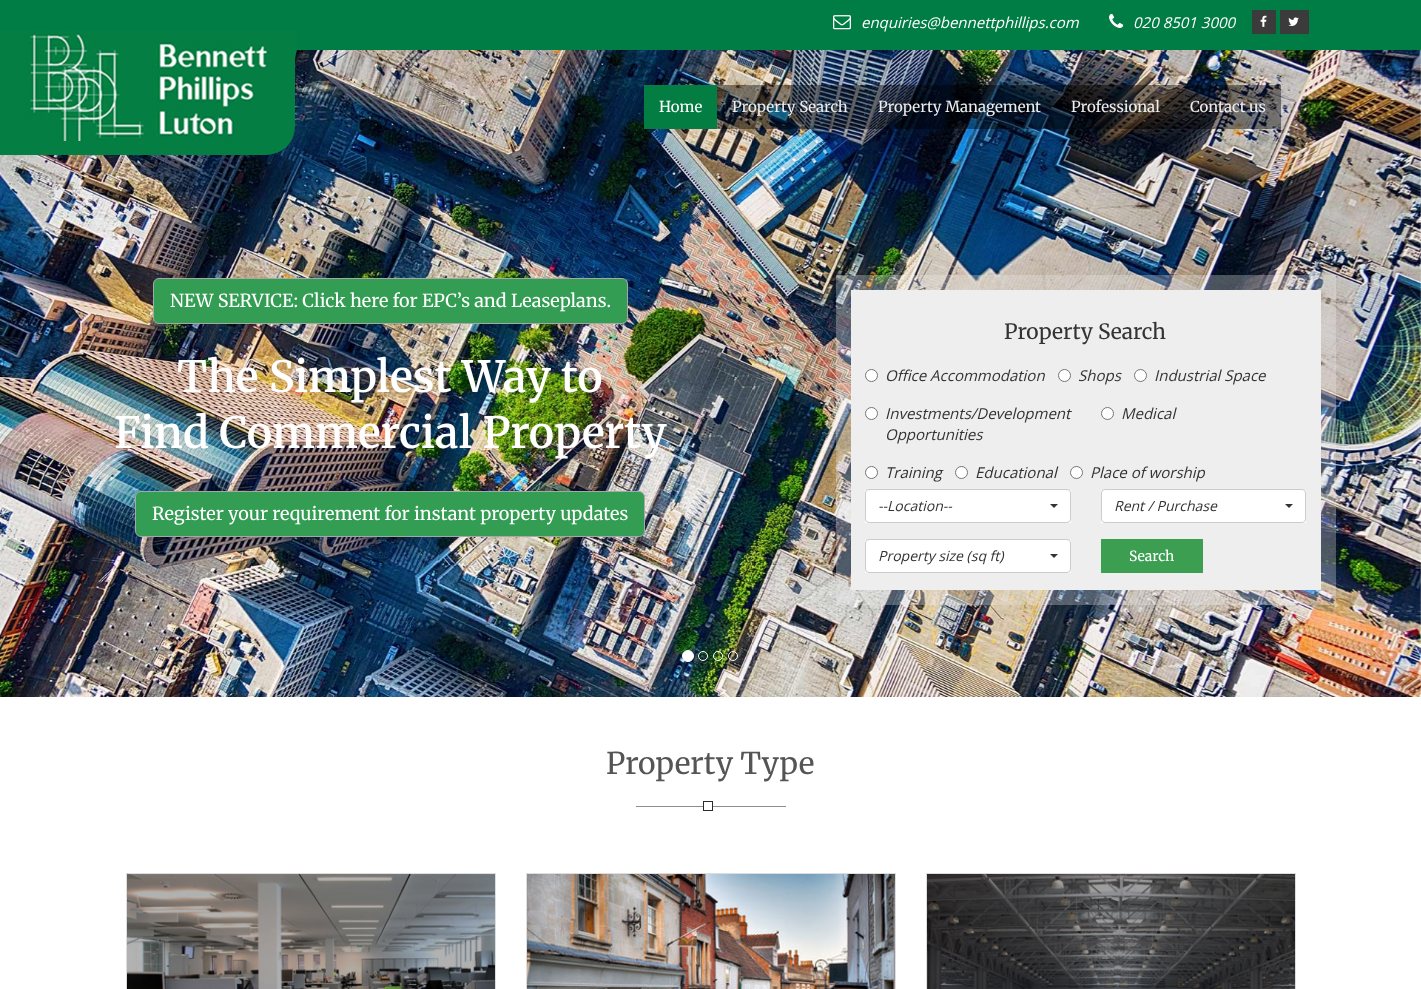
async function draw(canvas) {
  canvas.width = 1421;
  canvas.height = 989;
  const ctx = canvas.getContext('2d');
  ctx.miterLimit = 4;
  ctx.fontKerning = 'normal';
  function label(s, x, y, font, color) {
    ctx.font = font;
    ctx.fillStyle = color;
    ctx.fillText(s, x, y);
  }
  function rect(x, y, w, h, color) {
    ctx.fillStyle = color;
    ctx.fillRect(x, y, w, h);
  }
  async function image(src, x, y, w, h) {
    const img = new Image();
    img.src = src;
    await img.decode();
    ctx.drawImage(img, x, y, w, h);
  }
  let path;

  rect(0, 0, 1421, 989, '#fff');
  rect(0, 0, 1421, 50, '#007d44');
  await image('assets/img1.png', 833, 15, 18, 15);
  label('enquiries@bennettphillips.com', 861, 28, 'italic 15px Open Sans', '#fff');
  await image('assets/img2.png', 1109, 13, 15, 15);
  label('020 8501 3000', 1133, 28, 'italic 15px Open Sans', '#fff');
  rect(1252, 10, 24, 24, '#3b3b3b');
  await image('assets/img3.png', 1260, 15, 7, 12);
  rect(1280, 10, 29, 24, '#3b3b3b');
  await image('assets/img4.png', 1288, 17, 11, 9);
  await image('assets/img6.png', 0, 50, 1421, 647);
  await image('assets/img5.png', 0, 31, 297, 124);
  rect(717, 85, 564, 44, '#0000006b');
  rect(644, 85, 73, 44, '#037d42');
  label('Home', 659, 112, '15px Merriweather', '#fff');
  label('Property Search', 732, 112, '15px Merriweather', '#eee');
  label('Property Management', 878, 112, '15px Merriweather', '#eee');
  label('Professional', 1071, 112, '15px Merriweather', '#eee');
  label('Contact us', 1190, 112, '15px Merriweather', '#eee');
  ctx.fillStyle = '#339d53';
  ctx.beginPath();
  ctx.roundRect(153.5, 278.5, 474, 45, 5.5);
  ctx.fill();
  ctx.strokeStyle = '#a7a7a7';
  ctx.stroke();
  label('NEW SERVICE: Click here for EPC’s and Leaseplans.', 170, 307, '18px Merriweather', '#fff');
  label('The Simplest Way to', 177, 392, '600 43px Merriweather', '#fff');
  label('Find Commercial Property', 114, 448, '600 43px Merriweather', '#fff');
  ctx.fillStyle = '#339d53';
  ctx.beginPath();
  ctx.roundRect(135.5, 491.5, 509, 45, 5.5);
  ctx.fill();
  ctx.stroke();
  label('Register your requirement for instant property updates', 152, 520, '18px Merriweather', '#fff');
  ctx.beginPath();
  ctx.arc(688, 656, 5.5, 0, 2 * Math.PI);
  ctx.fill();
  ctx.strokeStyle = '#fff';
  ctx.stroke();
  ctx.beginPath();
  ctx.arc(703, 656, 4.5, 0, 2 * Math.PI);
  ctx.stroke();
  ctx.beginPath();
  ctx.arc(718, 656, 4.5, 0, 2 * Math.PI);
  ctx.stroke();
  ctx.beginPath();
  ctx.arc(733, 656, 4.5, 0, 2 * Math.PI);
  ctx.stroke();
  rect(836, 275, 500, 330, '#eeeeee4d');
  rect(851, 290, 470, 300, '#eee');
  label('Property Search', 1004, 339, '21px Merriweather', '#333');
  ctx.fillStyle = '#fff';
  ctx.beginPath();
  ctx.arc(871.5, 375.5, 6, 0, 2 * Math.PI);
  ctx.fill();
  ctx.strokeStyle = '#767676';
  ctx.stroke();
  label('Office Accommodation', 885, 381, 'italic 15px Open Sans', '#333');
  ctx.fillStyle = '#fff';
  ctx.beginPath();
  ctx.arc(1064.5, 375.5, 6, 0, 2 * Math.PI);
  ctx.fill();
  ctx.stroke();
  label('Shops', 1078, 381, 'italic 15px Open Sans', '#333');
  ctx.fillStyle = '#fff';
  ctx.beginPath();
  ctx.arc(1140.5, 375.5, 6, 0, 2 * Math.PI);
  ctx.fill();
  ctx.stroke();
  label('Industrial Space', 1154, 381, 'italic 15px Open Sans', '#333');
  ctx.fillStyle = '#fff';
  ctx.beginPath();
  ctx.arc(871.5, 413.5, 6, 0, 2 * Math.PI);
  ctx.fill();
  ctx.stroke();
  label('Investments/Development', 885, 419, 'italic 15px Open Sans', '#333');
  label('Opportunities', 885, 440, 'italic 15px Open Sans', '#333');
  ctx.fillStyle = '#fff';
  ctx.beginPath();
  ctx.arc(1107.5, 413.5, 6, 0, 2 * Math.PI);
  ctx.fill();
  ctx.stroke();
  label('Medical', 1121, 419, 'italic 15px Open Sans', '#333');
  ctx.fillStyle = '#fff';
  ctx.beginPath();
  ctx.arc(871.5, 472.5, 6, 0, 2 * Math.PI);
  ctx.fill();
  ctx.stroke();
  label('Training', 885, 478, 'italic 15px Open Sans', '#333');
  ctx.fillStyle = '#fff';
  ctx.beginPath();
  ctx.arc(961.5, 472.5, 6, 0, 2 * Math.PI);
  ctx.fill();
  ctx.stroke();
  label('Educational', 975, 478, 'italic 15px Open Sans', '#333');
  ctx.fillStyle = '#fff';
  ctx.beginPath();
  ctx.arc(1076.5, 472.5, 6, 0, 2 * Math.PI);
  ctx.fill();
  ctx.stroke();
  label('Place of worship', 1090, 478, 'italic 15px Open Sans', '#333');
  rect(865, 490, 206, 33, '#fff');
  ctx.beginPath();
  ctx.roundRect(865.5, 489.5, 205, 33, 3.5);
  ctx.fill();
  ctx.strokeStyle = '#ccc';
  ctx.stroke();
  label('--Location--', 878, 511, 'italic 14px Open Sans', '#333');
  path = new Path2D('M1050 504H1058L1054 508Z');
  ctx.fill(path);
  rect(1101, 490, 205, 33, '#fff');
  ctx.beginPath();
  ctx.roundRect(1101.5, 489.5, 204, 33, 3.5);
  ctx.fill();
  ctx.stroke();
  label('Rent / Purchase', 1114, 511, 'italic 14px Open Sans', '#333');
  path = new Path2D('M1285 504H1293L1289 508Z');
  ctx.fill(path);
  rect(865, 540, 206, 33, '#fff');
  ctx.beginPath();
  ctx.roundRect(865.5, 539.5, 205, 33, 3.5);
  ctx.fill();
  ctx.stroke();
  label('Property size (sq ft)', 878, 561, 'italic 14px Open Sans', '#333');
  path = new Path2D('M1050 554H1058L1054 558Z');
  ctx.fill(path);
  rect(1101, 539, 102, 34, '#3b9e51');
  label('Search', 1129, 561, '14px Merriweather', '#fff');
  label('Property Type', 606, 774, '30px Merriweather', '#555');
  rect(636, 806, 150, 1, '#8e8e8e');
  rect(704, 806, 8, 1, '#fff');
  ctx.strokeStyle = '#2b2b2b';
  ctx.strokeRect(703.5, 801.5, 9, 9);
  ctx.strokeStyle = '#ddd';
  ctx.strokeRect(126.5, 873.5, 369, 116);
  await image('assets/img7.png', 127, 874, 368, 115);
  ctx.strokeRect(526.5, 873.5, 369, 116);
  await image('assets/img8.png', 527, 874, 368, 115);
  ctx.strokeRect(926.5, 873.5, 369, 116);
  await image('assets/img9.png', 927, 874, 368, 115);
}

draw(document.querySelector('canvas'));
